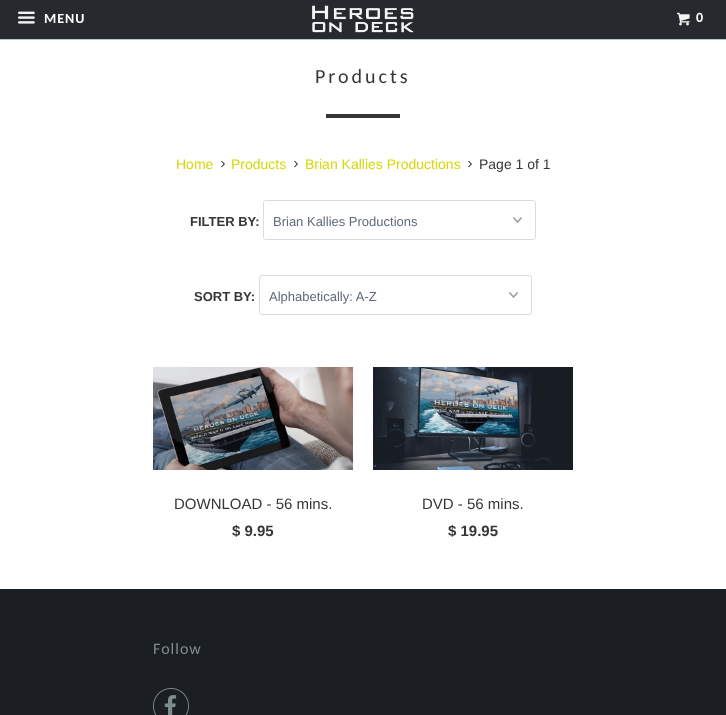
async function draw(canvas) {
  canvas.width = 726;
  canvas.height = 715;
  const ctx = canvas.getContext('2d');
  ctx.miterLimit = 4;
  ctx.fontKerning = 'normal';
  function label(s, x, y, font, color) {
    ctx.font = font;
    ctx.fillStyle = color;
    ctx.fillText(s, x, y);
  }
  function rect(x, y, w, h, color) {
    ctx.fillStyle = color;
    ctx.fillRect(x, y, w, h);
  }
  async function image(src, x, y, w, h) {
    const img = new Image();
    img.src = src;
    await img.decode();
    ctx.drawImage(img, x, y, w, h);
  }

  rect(0, 0, 726, 715, '#fff');
  rect(0, 0, 726, 39, '#262a2e');
  rect(0, 39, 726, 1, '#bcc9c9');
  await image('assets/img1.png', 18, 11, 17, 13);
  ctx.letterSpacing = '1px';
  label('MENU', 44, 23, 'bold 14px Carlito', '#fff');
  await image('assets/img2.png', 312, 5, 102, 28);
  await image('assets/img3.png', 677, 12, 13, 14);
  label('0', 696, 22, 'bold 14px Carlito', '#fff');
  ctx.letterSpacing = '3px';
  label('Products', 315, 83, '20px Carlito', '#363636');
  rect(326, 114, 74, 4, '#363636');
  ctx.letterSpacing = '0px';
  label('Home', 176, 169, '14px Liberation Sans', '#d6d80c');
  await image('assets/img4.png', 221, 160, 4, 8);
  label('Products', 231, 169, '14px Liberation Sans', '#d6d80c');
  await image('assets/img4.png', 294, 160, 4, 8);
  label('Brian Kallies Productions', 305, 169, '14px Liberation Sans', '#d6d80c');
  await image('assets/img4.png', 468, 160, 4, 8);
  label('Page 1 of 1', 479, 169, '14px Liberation Sans', '#363636');
  label('FILTER BY:', 190, 226, 'bold 13px Liberation Sans', '#363636');
  await image('assets/img5.png', 513, 217, 9, 6);
  ctx.beginPath();
  ctx.roundRect(263.5, 200.5, 272, 39, 2.5);
  ctx.strokeStyle = '#d9dbdc';
  ctx.stroke();
  label('Brian Kallies Productions', 273, 226, '13px Liberation Sans', '#5f6a7d');
  label('SORT BY:', 194, 301, 'bold 13px Liberation Sans', '#363636');
  await image('assets/img5.png', 509, 292, 9, 6);
  ctx.beginPath();
  ctx.roundRect(259.5, 275.5, 272, 39, 2.5);
  ctx.stroke();
  label('Alphabetically: A-Z', 269, 301, '13px Liberation Sans', '#5f6a7d');
  await image('assets/img6.png', 153, 367, 200, 103);
  label('DOWNLOAD - 56 mins.', 174, 509, '15px Liberation Sans', '#363636');
  label('$ 9.95', 232, 536, 'bold 15px Liberation Sans', '#363636');
  await image('assets/img7.png', 373, 367, 200, 103);
  label('DVD - 56 mins.', 422, 509, '15px Liberation Sans', '#363636');
  label('$ 19.95', 448, 536, 'bold 15px Liberation Sans', '#363636');
  rect(0, 589, 726, 126, '#1b1f23');
  ctx.letterSpacing = '1px';
  label('Follow', 153, 654, '16px Carlito', '#7f8c8d');
  await image('assets/img8.png', 153, 688, 36, 27);
}

draw(document.querySelector('canvas'));
